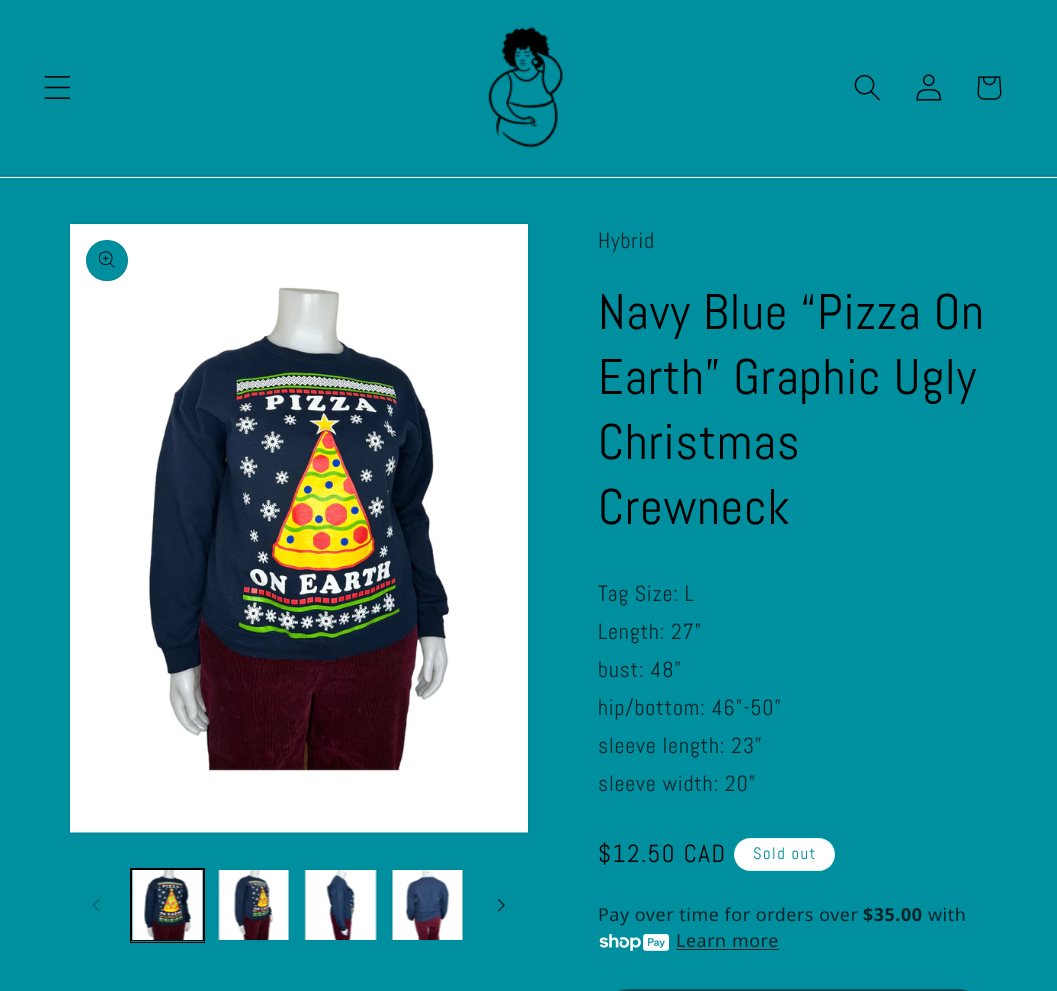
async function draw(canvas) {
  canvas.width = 1057;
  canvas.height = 991;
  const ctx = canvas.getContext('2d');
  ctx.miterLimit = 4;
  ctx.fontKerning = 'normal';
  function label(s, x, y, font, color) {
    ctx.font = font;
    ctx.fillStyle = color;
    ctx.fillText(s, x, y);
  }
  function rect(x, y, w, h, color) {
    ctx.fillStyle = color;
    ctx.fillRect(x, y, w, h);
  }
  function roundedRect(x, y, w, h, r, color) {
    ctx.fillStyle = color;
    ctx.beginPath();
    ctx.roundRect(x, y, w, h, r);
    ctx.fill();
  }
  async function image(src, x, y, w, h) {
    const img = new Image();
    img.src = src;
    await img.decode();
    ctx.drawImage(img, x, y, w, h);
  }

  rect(0, 0, 1057, 991, '#fff');
  rect(0, 0, 1057, 175, '#008f9f');
  rect(0, 175, 1057, 1, '#008492');
  await image('assets/img1.png', 44, 76, 26, 23);
  await image('assets/img2.png', 488, 27, 75, 121);
  await image('assets/img3.png', 854, 74, 26, 27);
  await image('assets/img4.png', 916, 74, 26, 27);
  await image('assets/img5.png', 977, 76, 25, 24);
  rect(0, 176, 1057, 1, '#129699');
  rect(0, 178, 1057, 813, '#008f9f');
  ctx.strokeStyle = '#008897';
  ctx.strokeRect(69.5, 223.5, 459, 610);
  await image('assets/img6.png', 70, 224, 458, 609);
  roundedRect(86, 240, 42, 41, 20.5, '#008f9f');
  ctx.beginPath();
  ctx.roundRect(86.5, 240.5, 41, 40, 20);
  ctx.strokeStyle = '#0000001a';
  ctx.stroke();
  await image('assets/img7.png', 99, 251, 16, 17);
  await image('assets/img8.png', 92, 899, 8, 13);
  ctx.strokeStyle = '#000';
  ctx.strokeRect(130.5, 868.5, 74, 74);
  ctx.strokeRect(131.5, 869.5, 72, 71);
  await image('assets/img9.png', 132, 870, 71, 70);
  ctx.strokeStyle = '#008897';
  ctx.strokeRect(218.5, 869.5, 71, 71);
  await image('assets/img10.png', 218, 870, 72, 70);
  ctx.strokeRect(304.5, 869.5, 73, 71);
  await image('assets/img11.png', 304, 870, 73, 70);
  ctx.strokeRect(391.5, 869.5, 72, 71);
  await image('assets/img12.png', 392, 870, 71, 70);
  await image('assets/img13.png', 498, 899, 7, 13);
  ctx.letterSpacing = '0.8px';
  label('Hybrid', 598, 248, '22px Abel', '#002428');
  ctx.letterSpacing = '0.75px';
  label('Navy Blue “Pizza On', 598, 329, '50px Abel', '#000');
  label('Earth” Graphic Ugly', 598, 394, '50px Abel', '#000');
  label('Christmas', 598, 459, '50px Abel', '#000');
  label('Crewneck', 598, 524, '50px Abel', '#000');
  ctx.letterSpacing = '0.8px';
  label('Tag Size: L', 598, 601, '22px Abel', '#002428');
  label('Length: 27”', 598, 639, '22px Abel', '#002428');
  label('bust: 48”', 598, 677, '22px Abel', '#002428');
  label('hip/bottom: 46”-50”', 598, 715, '22px Abel', '#002428');
  label('sleeve length: 23”', 598, 753, '22px Abel', '#002428');
  label('sleeve width: 20”', 598, 791, '22px Abel', '#002428');
  ctx.letterSpacing = '1.75px';
  label('$12.50 CAD', 598, 862, '24.75px Abel', '#000');
  roundedRect(734, 838, 101, 33, 16.5, '#fff');
  ctx.beginPath();
  ctx.roundRect(734.5, 838.5, 100, 32, 16);
  ctx.strokeStyle = '#008f9f1a';
  ctx.stroke();
  ctx.letterSpacing = '1.5px';
  label('Sold out', 753, 859, '16.5px Abel', '#008f9f');
  ctx.letterSpacing = '0.55px';
  label('Pay over time for orders over', 598, 921, '17.9px Noto Sans', '#002428');
  label('$35.00', 863, 921, 'bold 17.9px Noto Sans', '#002428');
  label('with', 928, 921, '17.9px Noto Sans', '#002428');
  await image('assets/img14.png', 599, 934, 70, 17);
  label('Learn more', 676, 947, '17.9px Noto Sans', '#002428');
  rect(676, 949, 103, 1, '#002428');
  ctx.beginPath();
  ctx.roundRect(605.5, 996.5, 376, 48, 38);
  ctx.strokeStyle = '#095159';
  ctx.lineWidth = 15;
  ctx.stroke();
}

draw(document.querySelector('canvas'));
